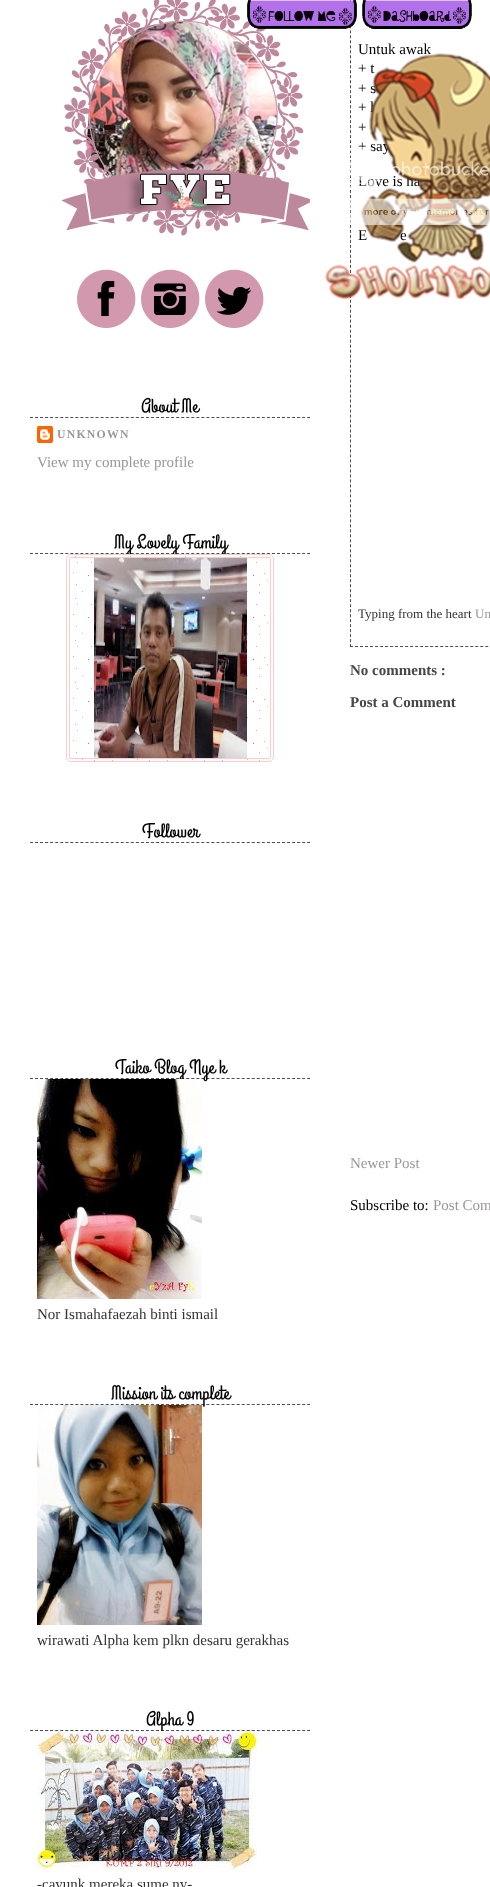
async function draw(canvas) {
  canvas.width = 490;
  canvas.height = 1887;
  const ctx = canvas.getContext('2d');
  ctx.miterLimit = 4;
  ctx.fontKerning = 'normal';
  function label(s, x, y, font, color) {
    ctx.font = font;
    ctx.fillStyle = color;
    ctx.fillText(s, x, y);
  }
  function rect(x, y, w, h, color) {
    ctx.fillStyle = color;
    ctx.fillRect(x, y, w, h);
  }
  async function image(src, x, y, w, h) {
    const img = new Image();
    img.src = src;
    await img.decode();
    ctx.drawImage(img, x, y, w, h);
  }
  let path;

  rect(0, 0, 490, 1887, '#fff');
  await image('assets/img4.png', 61, 0, 249, 236);
  path = new Path2D('M350 646.5H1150');
  ctx.strokeStyle = '#4d4d4d';
  ctx.setLineDash([3, 2.01]);
  ctx.stroke(path);
  path = new Path2D('M350.5-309V647');
  ctx.setLineDash([3, 1.99]);
  ctx.stroke(path);
  await image('assets/img1.png', 247, 0, 110, 29);
  await image('assets/img2.png', 362, 0, 110, 29);
  label('Untuk awak', 358, 54, '15px Liberation Serif', '#000');
  label('+ t', 358, 73, '15px Liberation Serif', '#000');
  label('+ s', 358, 93, '15px Liberation Serif', '#000');
  label('+ h', 358, 112, '15px Liberation Serif', '#000');
  label('+', 358, 132, '15px Liberation Serif', '#000');
  label('+ say', 358, 151, '15px Liberation Serif', '#000');
  label('Love is ha', 358, 186, '15px Liberation Serif', '#000');
  label('E', 358, 240, '15px Liberation Serif', '#000');
  label('e', 400, 240, '15px Liberation Serif', '#000');
  await image('assets/img3.png', 325, 53, 165, 247);
  await image('assets/img5.png', 77, 269, 59, 59);
  await image('assets/img6.png', 141, 269, 59, 59);
  await image('assets/img7.png', 205, 269, 59, 59);
  path = new Path2D('M30 417.5H310');
  ctx.setLineDash([3, 2.04]);
  ctx.stroke(path);
  label('About Me', 141, 412, '20px Grand Hotel', '#000');
  await image('assets/img8.png', 37, 426, 16, 17);
  ctx.letterSpacing = '1.25px';
  label('UNKNOWN', 57, 438, 'bold 11.75px Liberation Serif', '#9d9696');
  ctx.letterSpacing = '0px';
  label('View my complete profile', 37, 467, '15px Liberation Serif', '#9d9696');
  path = new Path2D('M30 553.5H310');
  ctx.stroke(path);
  label('My Lovely Family', 114, 548, '20px Grand Hotel', '#000');
  await image('assets/img9.png', 73, 555, 195, 206);
  ctx.beginPath();
  ctx.roundRect(66.5, 554.5, 207, 207, 4.5);
  ctx.strokeStyle = '#fcc';
  ctx.setLineDash([]);
  ctx.stroke();
  ctx.beginPath();
  ctx.roundRect(69.5, 557.5, 201, 201, 1.5);
  ctx.stroke();
  await image('assets/img10.png', 94, 558, 153, 200);
  path = new Path2D('M30 842.5H310');
  ctx.strokeStyle = '#4d4d4d';
  ctx.setLineDash([3, 2.04]);
  ctx.stroke(path);
  label('Follower', 142, 837, '20px Grand Hotel', '#000');
  path = new Path2D('M30 1078.5H310');
  ctx.stroke(path);
  label('Taiko Blog Nye k', 115, 1073, '20px Grand Hotel', '#000');
  await image('assets/img11.png', 37, 1079, 165, 220);
  label('Nor Ismahafaezah binti ismail', 37, 1319, '15px Liberation Serif', '#333');
  path = new Path2D('M30 1404.5H310');
  ctx.stroke(path);
  label('Mission its complete', 111, 1399, '20px Grand Hotel', '#000');
  await image('assets/img12.png', 37, 1405, 165, 220);
  label('wirawati Alpha kem plkn desaru gerakhas', 37, 1645, '15px Liberation Serif', '#333');
  path = new Path2D('M30 1730.5H310');
  ctx.stroke(path);
  label('Alpha 9', 146, 1725, '20px Grand Hotel', '#000');
  await image('assets/img13.png', 37, 1731, 220, 138);
  label('-cayunk mereka sume ny-', 37, 1889, '15px Liberation Serif', '#333');
  label('Typing from the heart', 358, 618, '13px Liberation Serif', '#333');
  label('Un', 475, 618, '13px Liberation Serif', '#9d9696');
  label('No comments :', 350, 675, 'bold 15px Liberation Serif', '#464646');
  label('Post a Comment', 350, 707, 'bold 15px Liberation Serif', '#464646');
  label('Newer Post', 350, 1168, '15px Liberation Serif', '#9d9696');
  label('Subscribe to:', 350, 1210, '15px Liberation Serif', '#000');
  label('Post Com', 433, 1210, '15px Liberation Serif', '#9d9696');
}

draw(document.querySelector('canvas'));
